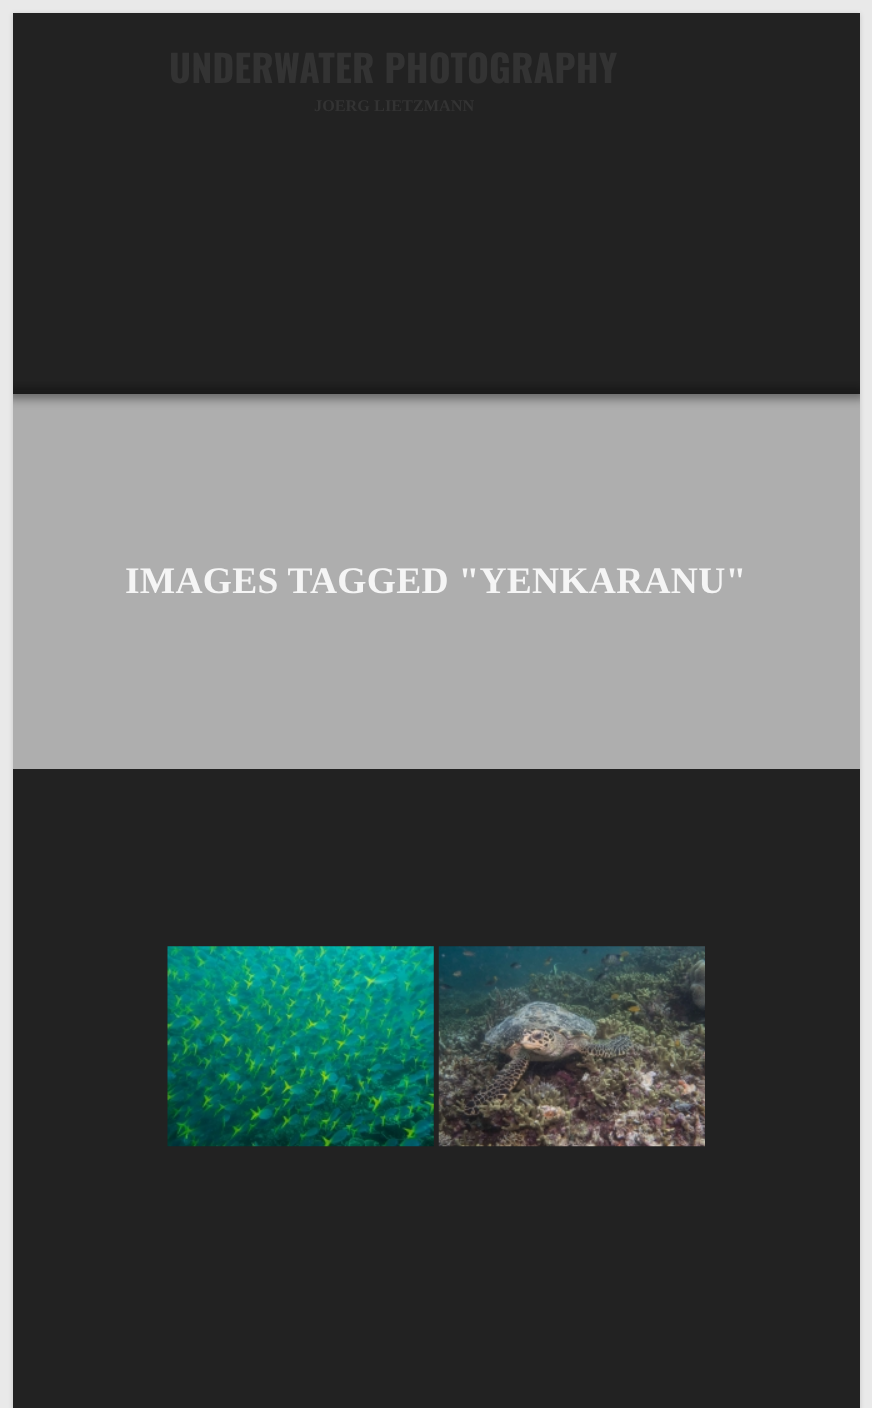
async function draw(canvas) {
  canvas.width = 872;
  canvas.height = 1408;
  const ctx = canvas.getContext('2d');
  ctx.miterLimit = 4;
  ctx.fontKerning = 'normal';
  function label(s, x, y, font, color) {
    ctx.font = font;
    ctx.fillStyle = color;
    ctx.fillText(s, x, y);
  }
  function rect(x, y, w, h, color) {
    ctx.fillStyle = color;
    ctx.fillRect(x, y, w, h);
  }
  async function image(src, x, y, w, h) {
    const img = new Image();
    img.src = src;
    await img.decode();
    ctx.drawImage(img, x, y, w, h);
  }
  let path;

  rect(0, 0, 872, 1408, '#e9e9e9');
  ctx.fillStyle = '#00000026';
  ctx.filter = 'blur(2.5px)';
  ctx.beginPath();
  ctx.rect(13, 14, 847, 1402);
  ctx.fill();
  ctx.filter = 'none';
  rect(13, 13, 847, 1395, '#222');
  ctx.save();
  ctx.beginPath();
  ctx.rect(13, 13, 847, 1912);
  ctx.clip();
  ctx.beginPath();
  ctx.rect(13, 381, 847, 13);
  ctx.clip();
  ctx.fillStyle = '#00000066';
  ctx.filter = 'blur(5px)';
  ctx.beginPath();
  ctx.rect(8, 389, 857, 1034);
  ctx.fill();
  ctx.filter = 'none';
  ctx.restore();
  rect(13, 394, 847, 375, '#aeaeae');
  ctx.save();
  ctx.beginPath();
  ctx.rect(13, 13, 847, 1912);
  ctx.clip();
  path = new Path2D('M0 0H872V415H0ZM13 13H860V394H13Z');
  ctx.clip(path, 'evenodd');
  ctx.fillStyle = '#00000066';
  ctx.filter = 'blur(5px)';
  ctx.beginPath();
  ctx.rect(8, 8, 857, 391);
  ctx.fill();
  ctx.filter = 'none';
  ctx.restore();
  rect(13, 390, 847, 4, '#22222257');
  ctx.letterSpacing = '0.1px';
  label('UNDERWATER PHOTOGRAPHY', 169, 83, 'bold 37.5px Oswald', '#333');
  ctx.letterSpacing = '0px';
  label('JOERG LIETZMANN', 314, 111, 'bold 16.25px Liberation Serif', '#333');
  ctx.letterSpacing = '0.25px';
  label('IMAGES TAGGED "YENKARANU"', 125, 593, 'bold 37.5px Liberation Serif', '#f5f5f5');
  await image('assets/img1.png', 167, 946, 267, 201);
  await image('assets/img2.png', 438, 946, 267, 201);
}

draw(document.querySelector('canvas'));
